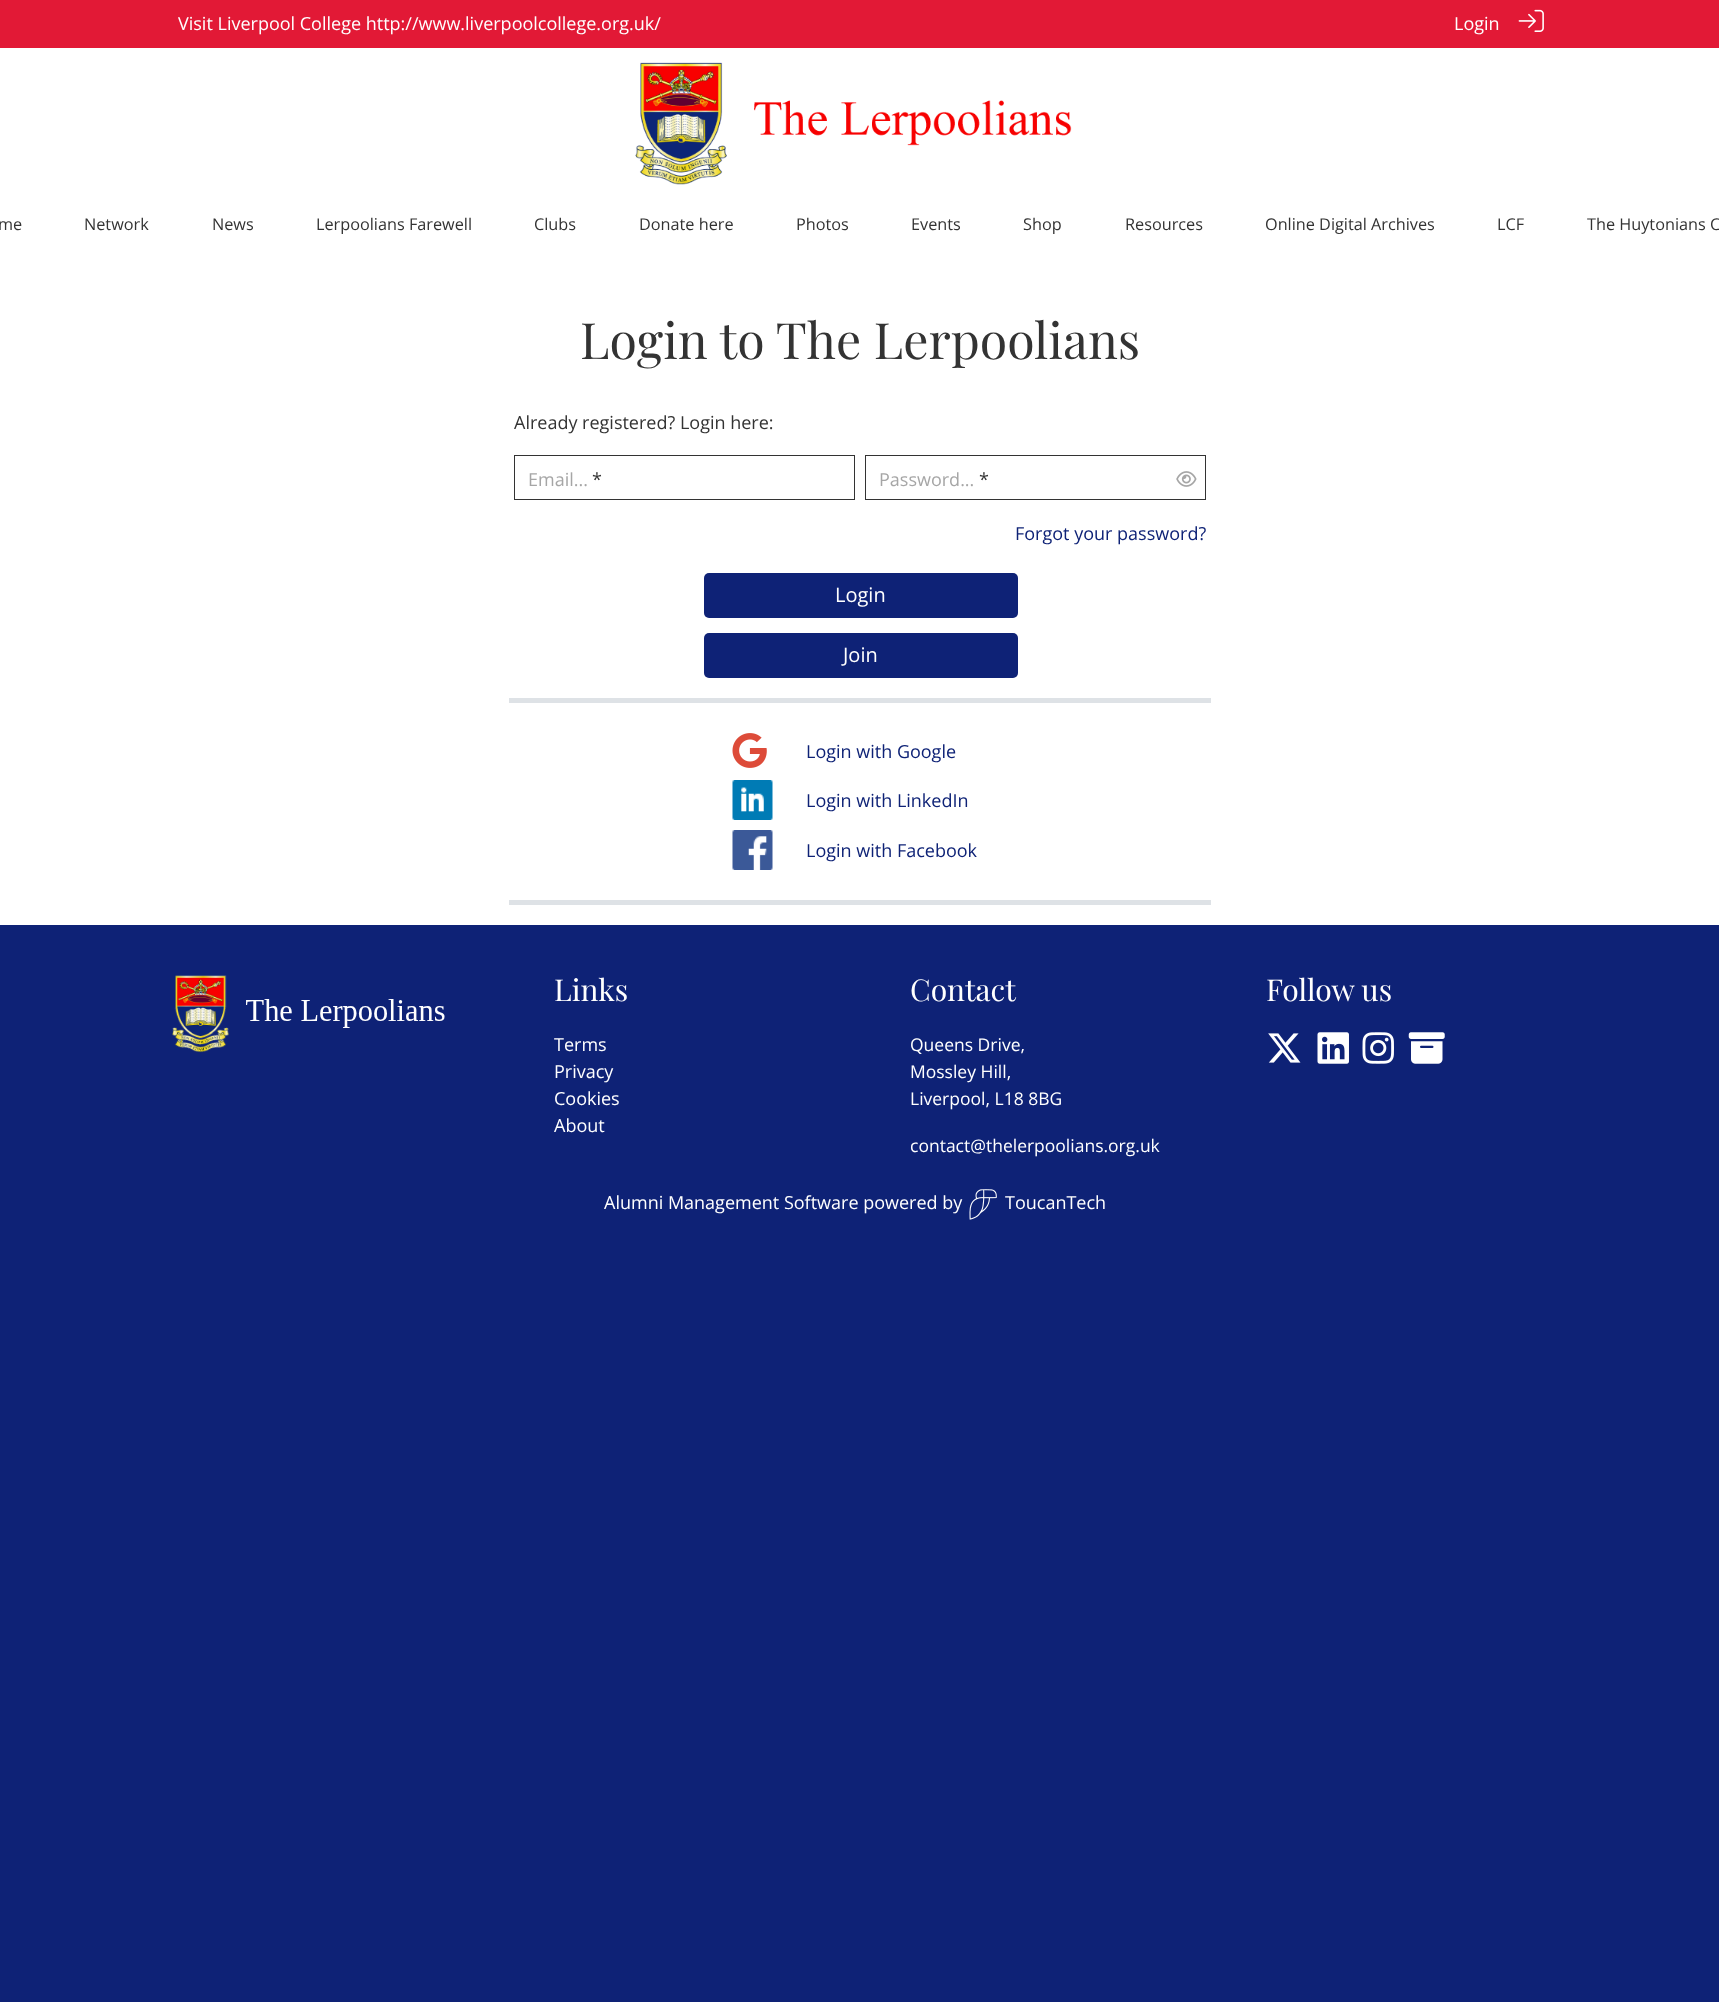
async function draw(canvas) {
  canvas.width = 1719;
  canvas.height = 2002;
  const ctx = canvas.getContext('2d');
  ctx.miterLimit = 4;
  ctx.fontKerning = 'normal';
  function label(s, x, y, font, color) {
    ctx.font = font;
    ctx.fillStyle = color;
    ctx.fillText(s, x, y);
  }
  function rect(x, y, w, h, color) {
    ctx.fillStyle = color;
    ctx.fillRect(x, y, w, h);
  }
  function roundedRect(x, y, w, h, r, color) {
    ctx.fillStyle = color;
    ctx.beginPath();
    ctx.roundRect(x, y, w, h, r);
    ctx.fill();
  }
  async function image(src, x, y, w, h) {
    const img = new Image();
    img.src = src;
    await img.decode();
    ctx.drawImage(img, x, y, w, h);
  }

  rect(0, 0, 1719, 2002, '#0e2276');
  rect(0, 0, 1719, 48, '#e21936');
  label('Visit Liverpool College http://www.liverpoolcollege.org.uk/', 178, 30, '18px Open Sans', '#fff');
  label('Login', 1454, 30, '18px Open Sans', '#fff');
  await image('assets/img1.png', 1518, 9, 26, 23);
  rect(0, 48, 1719, 201, '#fff');
  await image('assets/img2.png', 635, 62, 437, 123);
  label('me', -2, 230, '16.25px Open Sans', '#333');
  label('Network', 84, 230, '16.25px Open Sans', '#333');
  label('News', 212, 230, '16.25px Open Sans', '#333');
  label('Lerpoolians Farewell', 316, 230, '16.25px Open Sans', '#333');
  label('Clubs', 534, 230, '16.25px Open Sans', '#333');
  label('Donate here', 639, 230, '16.25px Open Sans', '#333');
  label('Photos', 796, 230, '16.25px Open Sans', '#333');
  label('Events', 911, 230, '16.25px Open Sans', '#333');
  label('Shop', 1023, 230, '16.25px Open Sans', '#333');
  label('Resources', 1125, 230, '16.25px Open Sans', '#333');
  label('Online Digital Archives', 1265, 230, '16.25px Open Sans', '#333');
  label('LCF', 1497, 230, '16.25px Open Sans', '#333');
  label('The Huytonians C', 1587, 230, '16.25px Open Sans', '#333');
  rect(0, 249, 1719, 676, '#fff');
  label('Login to The Lerpoolians', 580, 359, '50px Playfair Display', '#333');
  label('Already registered? Login here:', 514, 429, '18px Open Sans', '#333');
  ctx.strokeStyle = '#333';
  ctx.strokeRect(514.5, 455.5, 340, 44);
  label('Email...', 528, 486, '18px Open Sans', '#a6a6a6');
  label('*', 592, 486, '18px Open Sans', '#333');
  ctx.strokeRect(865.5, 455.5, 340, 44);
  label('Password...', 879, 486, '18px Open Sans', '#a6a6a6');
  label('*', 979, 486, '18px Open Sans', '#333');
  await image('assets/img3.png', 1176, 471, 21, 16);
  label('Forgot your password?', 1015, 540, '18px Open Sans', '#0e2276');
  roundedRect(704, 573, 314, 45, 5, '#0e2276');
  label('Login', 835, 602, '20px Open Sans', '#fff');
  roundedRect(704, 633, 314, 45, 5, '#0e2276');
  label('Join', 843, 662, '20px Open Sans', '#fff');
  rect(509, 698, 702, 5, '#dee2e6');
  await image('assets/img4.png', 732, 733, 35, 35);
  label('Login with Google', 806, 758, '18px Open Sans', '#0e2276');
  await image('assets/img5.png', 732, 780, 41, 40);
  label('Login with LinkedIn', 806, 807, '18px Open Sans', '#0e2276');
  await image('assets/img6.png', 732, 830, 41, 40);
  label('Login with Facebook', 806, 857, '18px Open Sans', '#0e2276');
  rect(509, 900, 702, 5, '#dee2e6');
  await image('assets/img7.png', 172, 975, 273, 78);
  label('Links', 554, 1001, '30px Playfair Display', '#fff');
  label('Terms', 554, 1051, '18px Open Sans', '#fff');
  label('Privacy', 554, 1078, '18px Open Sans', '#fff');
  label('Cookies', 554, 1105, '18px Open Sans', '#fff');
  label('About', 554, 1132, '18px Open Sans', '#fff');
  label('Contact', 910, 1001, '30px Playfair Display', '#fff');
  label('Queens Drive,', 910, 1051, '17.5px Open Sans', '#fff');
  label('Mossley Hill,', 910, 1078, '17.5px Open Sans', '#fff');
  label('Liverpool, L18 8BG', 910, 1105, '17.5px Open Sans', '#fff');
  label('contact@thelerpoolians.org.uk', 910, 1152, '17.5px Open Sans', '#fff');
  label('Follow us', 1266, 1001, '30px Playfair Display', '#fff');
  await image('assets/img8.png', 1268, 1033, 33, 30);
  await image('assets/img9.png', 1317, 1032, 32, 32);
  await image('assets/img10.png', 1362, 1032, 32, 32);
  await image('assets/img11.png', 1408, 1032, 37, 32);
  label('Alumni Management Software powered by', 604, 1209, '18px Open Sans', '#fff');
  await image('assets/img12.png', 969, 1189, 28, 31);
  label('ToucanTech', 1005, 1209, '18px Open Sans', '#fff');
}

draw(document.querySelector('canvas'));
